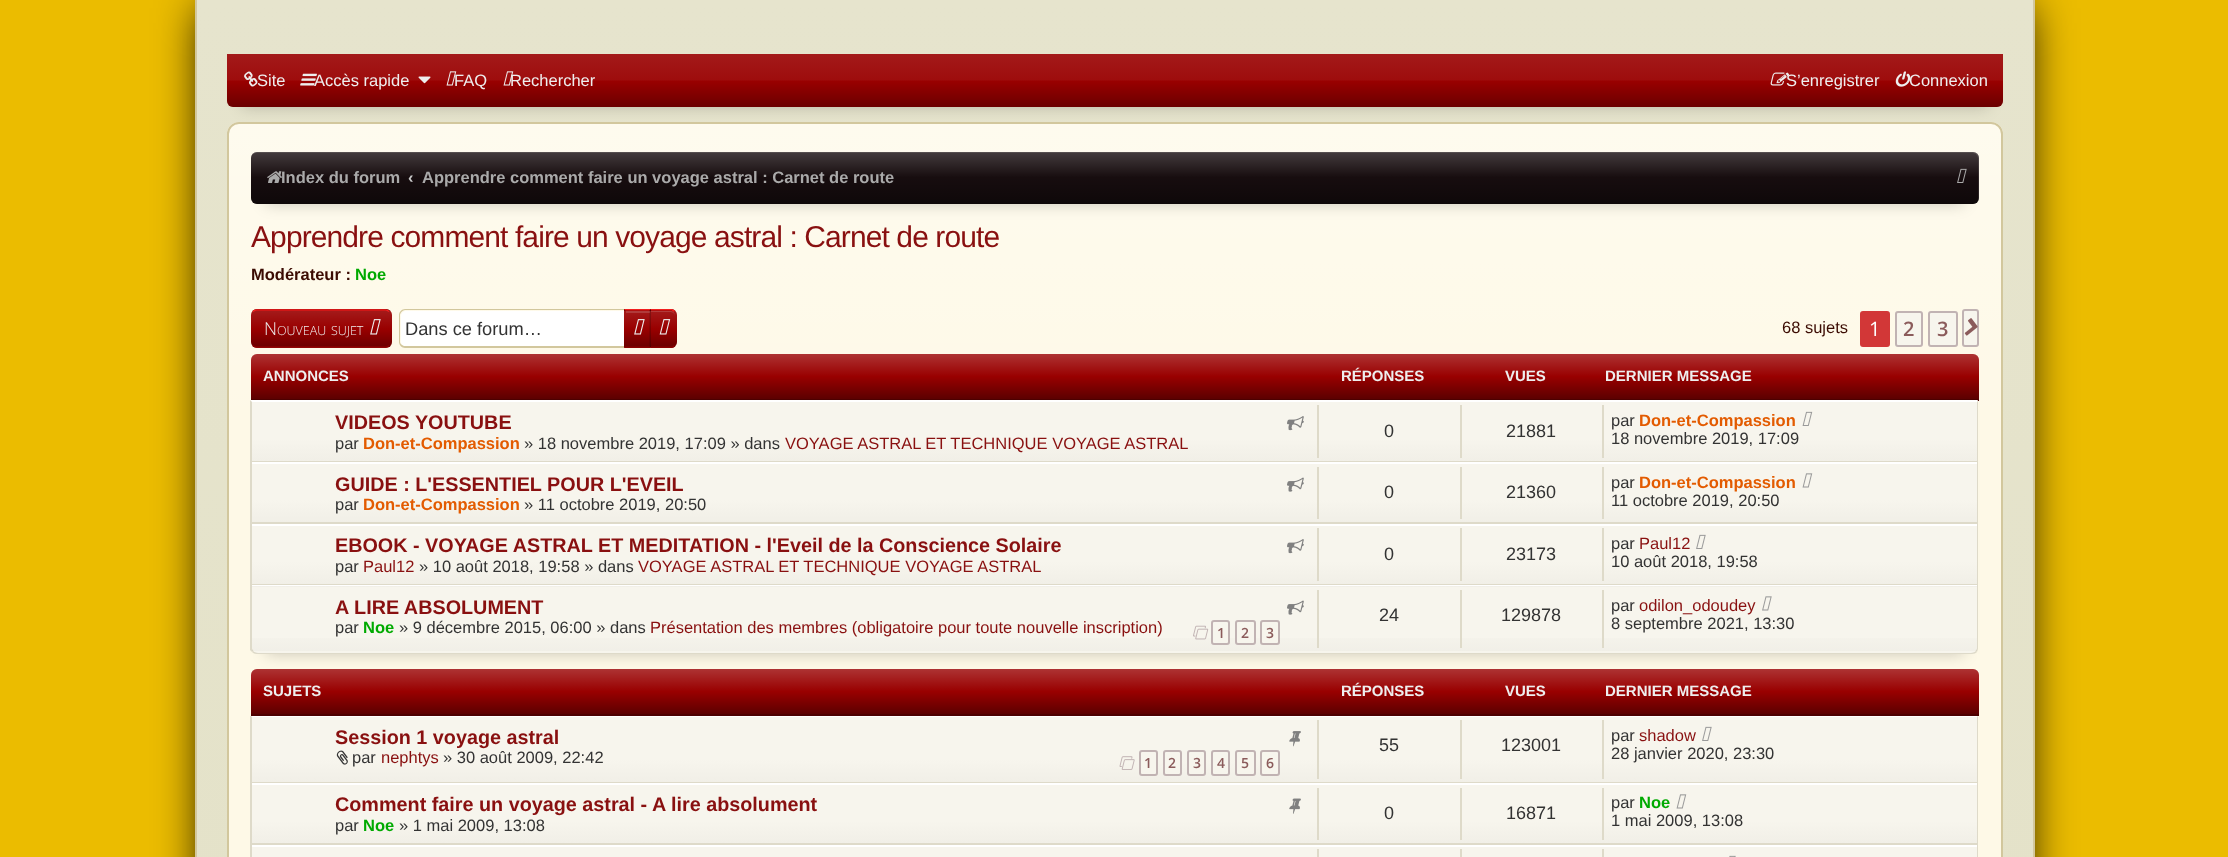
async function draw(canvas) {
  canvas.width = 2228;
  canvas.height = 857;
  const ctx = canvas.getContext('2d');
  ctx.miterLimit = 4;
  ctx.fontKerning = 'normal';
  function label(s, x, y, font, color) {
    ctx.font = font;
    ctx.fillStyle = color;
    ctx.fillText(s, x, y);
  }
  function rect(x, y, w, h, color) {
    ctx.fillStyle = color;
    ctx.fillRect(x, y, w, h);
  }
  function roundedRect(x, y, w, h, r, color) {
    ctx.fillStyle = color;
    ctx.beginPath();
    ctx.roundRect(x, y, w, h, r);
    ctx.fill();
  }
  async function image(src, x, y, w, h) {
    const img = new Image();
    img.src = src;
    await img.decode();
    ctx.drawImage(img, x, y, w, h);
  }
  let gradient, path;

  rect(0, 0, 2228, 857, '#ebbc00');
  ctx.fillStyle = '#000';
  ctx.filter = 'blur(22.5px)';
  ctx.beginPath();
  ctx.rect(203, 8, 1824, 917);
  ctx.fill();
  ctx.filter = 'none';
  gradient = ctx.createLinearGradient(1114, 0, 1115, 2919);
  gradient.addColorStop(0, '#e6e4cd');
  gradient.addColorStop(1, '#e0dec0');
  ctx.fillStyle = gradient;
  ctx.fillRect(197, 0, 1836, 857);
  rect(2033, 0, 2, 857, '#d2c79d');
  rect(195, 0, 2, 857, '#d2c79d');
  ctx.fillStyle = '#00000033';
  ctx.filter = 'blur(7.5px)';
  ctx.beginPath();
  ctx.rect(242, 84, 1746, 23);
  ctx.fill();
  ctx.filter = 'none';
  ctx.fillStyle = '#900';
  ctx.beginPath();
  ctx.roundRect(227, 54, 1776, 53, [0, 0, 6, 6]);
  ctx.fill();
  gradient = ctx.createLinearGradient(1115, 54, 1115, 107);
  gradient.addColorStop(0, '#ffffff1a');
  gradient.addColorStop(0.49, '#ffffff0d');
  gradient.addColorStop(0.51, '#ffffff00');
  gradient.addColorStop(0.51, '#00000000');
  gradient.addColorStop(1, '#0000004d');
  ctx.fillStyle = gradient;
  ctx.beginPath();
  ctx.roundRect(227, 54, 1776, 53, [0, 0, 6, 6]);
  ctx.fill();
  await image('assets/img1.png', 244, 71, 14, 16);
  label('Site', 257, 86, '16.5px Liberation Sans', '#eee');
  await image('assets/img2.png', 300, 73, 17, 13);
  label('Accès rapide', 314, 86, '16.5px Liberation Sans', '#eee');
  await image('assets/img3.png', 418, 76, 13, 8);
  await image('assets/img4.png', 446, 71, 11, 15);
  label('FAQ', 454, 86, '16.5px Liberation Sans', '#eee');
  await image('assets/img4.png', 503, 71, 11, 15);
  label('Rechercher', 510, 86, '16.5px Liberation Sans', '#eee');
  await image('assets/img5.png', 1770, 72, 19, 14);
  label('S’enregistrer', 1786, 86, '16.5px Liberation Sans', '#eee');
  await image('assets/img6.png', 1895, 71, 16, 16);
  label('Connexion', 1909, 86, '16.5px Liberation Sans', '#eee');
  roundedRect(227, 122, 1776, 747, 12, '#fef9e7');
  ctx.save();
  ctx.beginPath();
  ctx.roundRect(227, 122, 1776, 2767, 12);
  ctx.clip();
  gradient = ctx.createLinearGradient(1114, 123, 1115, 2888);
  gradient.addColorStop(0, '#ffffff4d');
  gradient.addColorStop(0.11, '#ffffff00');
  ctx.fillStyle = gradient;
  ctx.fillRect(227, 123, 1776, 283);
  ctx.restore();
  ctx.beginPath();
  ctx.roundRect(228, 123, 1774, 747, 11);
  ctx.strokeStyle = '#d2c79d';
  ctx.lineWidth = 2;
  ctx.stroke();
  ctx.fillStyle = '#00000033';
  ctx.filter = 'blur(7.5px)';
  ctx.beginPath();
  ctx.rect(266, 182, 1698, 22);
  ctx.fill();
  ctx.filter = 'none';
  roundedRect(251, 152, 1728, 52, 6, '#170d0f');
  gradient = ctx.createLinearGradient(1115, 151, 1115, 204);
  gradient.addColorStop(0, '#ffffff33');
  gradient.addColorStop(0.5, '#ffffff00');
  gradient.addColorStop(0.5, '#00000000');
  gradient.addColorStop(1, '#00000066');
  ctx.fillStyle = gradient;
  ctx.beginPath();
  ctx.roundRect(251, 152, 1728, 52, 6);
  ctx.fill();
  ctx.fillStyle = '#ffffff1a';
  path = new Path2D('M256 153H1972C1976 153 1978 156 1978 159V202C1979 201 1979 199 1979 198V158C1979 155 1976 152 1973 152H257C255 152 253 153 252 155C253 154 255 153 256 153Z');
  ctx.fill(path);
  await image('assets/img7.png', 267, 171, 15, 12);
  label('Index du forum', 281, 183, 'bold 16.5px Liberation Sans', '#aaa');
  label('‹', 408, 183, 'bold 16.5px Liberation Sans', '#c8c8c8');
  label('Apprendre comment faire un voyage astral : Carnet de route', 422, 183, 'bold 16.5px Liberation Sans', '#aaa');
  await image('assets/img8.png', 1957, 168, 10, 15);
  ctx.letterSpacing = '-0.9px';
  label('Apprendre comment faire un voyage astral : Carnet de route', 251, 247, '30px Liberation Sans', '#891010');
  ctx.letterSpacing = '0px';
  label('Modérateur :', 251, 280, 'bold 16.5px Liberation Sans', '#3b0b02');
  label('Noe', 355, 280, 'bold 16.5px Liberation Sans', '#0a0');
  roundedRect(251, 309, 141, 39, 6, '#900');
  ctx.save();
  ctx.beginPath();
  ctx.roundRect(251, 309, 141, 39, 6);
  ctx.clip();
  gradient = ctx.createLinearGradient(321, 275, 321, 311);
  gradient.addColorStop(0, '#ffffff1a');
  gradient.addColorStop(0.5, '#ffffff00');
  gradient.addColorStop(0.5, '#00000000');
  gradient.addColorStop(1, '#0000004d');
  ctx.fillStyle = gradient;
  ctx.fillRect(251, 309, 141, 2);
  gradient = ctx.createLinearGradient(321, 311, 321, 347);
  gradient.addColorStop(0, '#ffffff1a');
  gradient.addColorStop(0.5, '#ffffff00');
  gradient.addColorStop(0.5, '#00000000');
  gradient.addColorStop(1, '#0000004d');
  ctx.fillStyle = gradient;
  ctx.fillRect(251, 311, 141, 36);
  gradient = ctx.createLinearGradient(321, 347, 321, 383);
  gradient.addColorStop(0, '#ffffff1a');
  gradient.addColorStop(0.5, '#ffffff00');
  gradient.addColorStop(0.5, '#00000000');
  gradient.addColorStop(1, '#0000004d');
  ctx.fillStyle = gradient;
  ctx.fillRect(251, 347, 141, 1);
  ctx.restore();
  path = new Path2D('M253 311.5C254 310.5 255 310 256.5 310H385.5C387 310 388 310.5 389 311.5');
  ctx.strokeStyle = '#f11e1e';
  ctx.lineWidth = 1.5;
  ctx.stroke(path);
  path = new Path2D('M389 345.5C388 346.5 387 347 385.5 347H256.5C255 347 254 346.5 253 345.5');
  ctx.strokeStyle = '#8a0000';
  ctx.stroke(path);
  label('N', 264, 335, '300 18px Open Sans', '#eee');
  label('OUVEAU', 277, 335, '300 12.5px Open Sans', '#eee');
  label('SUJET', 331, 335, '300 12.5px Open Sans', '#eee');
  await image('assets/img9.png', 370, 319, 11, 16);
  ctx.fillStyle = '#fff';
  ctx.beginPath();
  ctx.roundRect(401, 311, 223, 36, [5, 0, 0, 5]);
  ctx.fill();
  ctx.fillStyle = '#d2c79d';
  path = new Path2D('M405 309H624V348H405C402 348 399 345 399 342V315C399 312 402 309 405 309ZM405 310H624V346H405C403 346 400 344 400 342V315C400 313 403 310 405 310Z');
  ctx.fill(path, 'evenodd');
  label('Dans ce forum…', 405, 335, '18.25px Liberation Sans', '#333');
  gradient = ctx.createLinearGradient(638, 275, 638, 311);
  gradient.addColorStop(0, '#a31a1a');
  gradient.addColorStop(0.5, '#900');
  gradient.addColorStop(1, '#6b0000');
  ctx.fillStyle = gradient;
  ctx.fillRect(624, 309, 27, 2);
  gradient = ctx.createLinearGradient(638, 311, 638, 347);
  gradient.addColorStop(0, '#a31a1a');
  gradient.addColorStop(0.5, '#900');
  gradient.addColorStop(1, '#6b0000');
  ctx.fillStyle = gradient;
  ctx.fillRect(624, 311, 27, 36);
  gradient = ctx.createLinearGradient(638, 347, 638, 383);
  gradient.addColorStop(0, '#a31a1a');
  gradient.addColorStop(0.5, '#900');
  gradient.addColorStop(1, '#6b0000');
  ctx.fillStyle = gradient;
  ctx.fillRect(624, 347, 27, 1);
  rect(626, 311, 24, 2, '#b03b3b');
  ctx.fillStyle = '#f11e1e';
  path = new Path2D('M624 309H651L649.5 310.5H625.5Z');
  ctx.fill(path);
  ctx.fillStyle = '#00000033';
  path = new Path2D('M651 309V348L649.5 346.5V310.5Z');
  ctx.fill(path);
  ctx.fillStyle = '#8a0000';
  path = new Path2D('M651 348H624L625.5 346.5H649.5Z');
  ctx.fill(path);
  await image('assets/img10.png', 634, 319, 11, 16);
  ctx.fillStyle = '#900';
  ctx.beginPath();
  ctx.roundRect(651, 309, 26, 39, [0, 6, 6, 0]);
  ctx.fill();
  ctx.save();
  ctx.beginPath();
  ctx.roundRect(651, 309, 26, 39, [0, 6, 6, 0]);
  ctx.clip();
  gradient = ctx.createLinearGradient(663, 275, 663, 311);
  gradient.addColorStop(0, '#ffffff1a');
  gradient.addColorStop(0.5, '#ffffff00');
  gradient.addColorStop(0.5, '#00000000');
  gradient.addColorStop(1, '#0000004d');
  ctx.fillStyle = gradient;
  ctx.fillRect(651, 309, 26, 2);
  gradient = ctx.createLinearGradient(663, 311, 663, 347);
  gradient.addColorStop(0, '#ffffff1a');
  gradient.addColorStop(0.5, '#ffffff00');
  gradient.addColorStop(0.5, '#00000000');
  gradient.addColorStop(1, '#0000004d');
  ctx.fillStyle = gradient;
  ctx.fillRect(651, 311, 26, 36);
  ctx.restore();
  ctx.fillStyle = '#b13b3b';
  path = new Path2D('M651 312H670C673 312 675 314 675 316C675 313 673 311 670 311H651Z');
  ctx.fill(path);
  ctx.fillStyle = '#f11e1e';
  path = new Path2D('M651 309V310.5H670.5C672 310.5 673 311 673.5 312L675 310.5C674 309.5 672 309 670.5 309Z');
  ctx.fill(path);
  ctx.fillStyle = '#8a0000';
  path = new Path2D('M651 346.5V348H670.5C672 348 674 347.5 675 346.5L673.5 345C673 346 672 346.5 670.5 346.5Z');
  ctx.fill(path);
  await image('assets/img11.png', 659, 319, 12, 16);
  label('68 sujets', 1782, 333, '16.5px Liberation Sans', '#3b0b02');
  ctx.fillStyle = '#d23737';
  ctx.beginPath();
  ctx.roundRect(1861, 312, 28, 34, 2);
  ctx.fill();
  ctx.strokeStyle = '#d23737';
  ctx.lineWidth = 2;
  ctx.stroke();
  label('1', 1869, 336, '20px Open Sans', '#fff');
  ctx.fillStyle = '#f7f5ed';
  ctx.beginPath();
  ctx.roundRect(1896, 312, 26, 34, 2);
  ctx.fill();
  ctx.strokeStyle = '#c1b3b3';
  ctx.stroke();
  label('2', 1903, 336, '600 20px Open Sans', '#8b5b5b');
  ctx.fillStyle = '#f7f5ed';
  ctx.beginPath();
  ctx.roundRect(1929, 312, 28, 34, 2);
  ctx.fill();
  ctx.stroke();
  label('3', 1937, 336, '600 20px Open Sans', '#8b5b5b');
  ctx.fillStyle = '#f7f5ed';
  ctx.beginPath();
  ctx.roundRect(1963, 310, 15, 36, 2);
  ctx.fill();
  ctx.stroke();
  await image('assets/img12.png', 1964, 318, 14, 18);
  ctx.fillStyle = '#00000033';
  ctx.filter = 'blur(7.5px)';
  ctx.beginPath();
  ctx.rect(266, 384, 1698, 270);
  ctx.fill();
  ctx.filter = 'none';
  ctx.fillStyle = '#900';
  ctx.beginPath();
  ctx.roundRect(251, 354, 1728, 47, [6, 6, 0, 0]);
  ctx.fill();
  gradient = ctx.createLinearGradient(1115, 354, 1115, 399);
  gradient.addColorStop(0, '#ffffff33');
  gradient.addColorStop(0.5, '#ffffff00');
  gradient.addColorStop(0.5, '#00000000');
  gradient.addColorStop(1, '#00000066');
  ctx.fillStyle = gradient;
  ctx.beginPath();
  ctx.roundRect(251, 354, 1728, 45, [6, 6, 0, 0]);
  ctx.fill();
  rect(251, 399, 1728, 2, '#4d0000');
  label('ANNONCES', 263, 381, 'bold 15px Liberation Sans', '#eee');
  label('RÉPONSES', 1341, 381, 'bold 15px Liberation Sans', '#eee');
  label('VUES', 1505, 381, 'bold 15px Liberation Sans', '#eee');
  label('DERNIER MESSAGE', 1605, 381, 'bold 15px Liberation Sans', '#eee');
  ctx.fillStyle = '#fff';
  path = new Path2D('M252 402L250 400H1978L1977 402Z');
  ctx.fill(path);
  ctx.fillStyle = '#dedac9';
  path = new Path2D('M1978 401V649L1977 652L1975 651C1976 650 1977 649 1977 648V402Z');
  ctx.fill(path);
  path = new Path2D('M256 654H1972C1974 654 1976 653 1977 652L1975 651L1972 652H256L254 651L252 652C253 653 255 654 256 654Z');
  ctx.fill(path);
  path = new Path2D('M252 402V648C252 649 253 650 254 651L252 652L250 650V400Z');
  ctx.fill(path);
  gradient = ctx.createLinearGradient(1115, 461, 1115, 402);
  gradient.addColorStop(0, '#f1efe7');
  gradient.addColorStop(0.38, '#f7f5ed');
  ctx.fillStyle = gradient;
  ctx.fillRect(252, 402, 1725, 59);
  rect(252, 461, 1725, 1, '#dedac9');
  label('VIDEOS YOUTUBE', 335, 429, 'bold 19.8px Liberation Sans', '#891010');
  await image('assets/img13.png', 1287, 416, 17, 15);
  label('par', 335, 449, '16.5px Liberation Sans', '#333');
  label('Don-et-Compassion', 363, 449, 'bold 16.5px Liberation Sans', '#e35b00');
  label('» 18 novembre 2019, 17:09 » dans', 524, 449, '16.5px Liberation Sans', '#333');
  label('VOYAGE ASTRAL ET TECHNIQUE VOYAGE ASTRAL', 785, 449, '16.5px Liberation Sans', '#891010');
  rect(1317, 405, 2, 53, '#dedac9');
  label('0', 1384, 437, '18px Liberation Sans', '#333');
  rect(1460, 405, 2, 53, '#dedac9');
  label('21881', 1506, 437, '18px Liberation Sans', '#333');
  rect(1602, 405, 2, 53, '#dedac9');
  label('par', 1611, 426, '16.5px Liberation Sans', '#333');
  label('Don-et-Compassion', 1639, 426, 'bold 16.5px Liberation Sans', '#e35b00');
  await image('assets/img14.png', 1802, 411, 11, 15);
  label('18 novembre 2019, 17:09', 1611, 444, '16.5px Liberation Sans', '#333');
  gradient = ctx.createLinearGradient(1115, 522, 1115, 464);
  gradient.addColorStop(0, '#f1efe7');
  gradient.addColorStop(0.38, '#f7f5ed');
  ctx.fillStyle = gradient;
  ctx.fillRect(252, 464, 1725, 58);
  rect(252, 462, 1725, 2, '#fff');
  rect(252, 522, 1725, 2, '#dedac9');
  label('GUIDE : L\'ESSENTIEL POUR L\'EVEIL', 335, 491, 'bold 19.8px Liberation Sans', '#891010');
  await image('assets/img15.png', 1287, 477, 17, 15);
  label('par', 335, 510, '16.5px Liberation Sans', '#333');
  label('Don-et-Compassion', 363, 510, 'bold 16.5px Liberation Sans', '#e35b00');
  label('» 11 octobre 2019, 20:50', 524, 510, '16.5px Liberation Sans', '#333');
  rect(1317, 467, 2, 52, '#dedac9');
  label('0', 1384, 498, '18px Liberation Sans', '#333');
  rect(1460, 467, 2, 52, '#dedac9');
  label('21360', 1506, 498, '18px Liberation Sans', '#333');
  rect(1602, 467, 2, 52, '#dedac9');
  label('par', 1611, 488, '16.5px Liberation Sans', '#333');
  label('Don-et-Compassion', 1639, 488, 'bold 16.5px Liberation Sans', '#e35b00');
  await image('assets/img16.png', 1802, 473, 11, 15);
  label('11 octobre 2019, 20:50', 1611, 506, '16.5px Liberation Sans', '#333');
  gradient = ctx.createLinearGradient(1115, 584, 1115, 525);
  gradient.addColorStop(0, '#f1efe7');
  gradient.addColorStop(0.38, '#f7f5ed');
  ctx.fillStyle = gradient;
  ctx.fillRect(252, 526, 1725, 58);
  rect(252, 524, 1725, 2, '#fff');
  rect(252, 584, 1725, 1, '#dedac9');
  label('EBOOK - VOYAGE ASTRAL ET MEDITATION - l\'Eveil de la Conscience Solaire', 335, 552, 'bold 19.8px Liberation Sans', '#891010');
  await image('assets/img13.png', 1287, 539, 17, 15);
  label('par', 335, 572, '16.5px Liberation Sans', '#333');
  label('Paul12', 363, 572, '16.5px Liberation Sans', '#891010');
  label('» 10 août 2018, 19:58 » dans', 419, 572, '16.5px Liberation Sans', '#333');
  label('VOYAGE ASTRAL ET TECHNIQUE VOYAGE ASTRAL', 638, 572, '16.5px Liberation Sans', '#891010');
  rect(1317, 528, 2, 53, '#dedac9');
  label('0', 1384, 560, '18px Liberation Sans', '#333');
  rect(1460, 528, 2, 53, '#dedac9');
  label('23173', 1506, 560, '18px Liberation Sans', '#333');
  rect(1602, 528, 2, 53, '#dedac9');
  label('par', 1611, 549, '16.5px Liberation Sans', '#333');
  label('Paul12', 1639, 549, '16.5px Liberation Sans', '#891010');
  await image('assets/img17.png', 1696, 534, 10, 15);
  label('10 août 2018, 19:58', 1611, 567, '16.5px Liberation Sans', '#333');
  ctx.fillStyle = '#f7f5ed';
  ctx.beginPath();
  ctx.roundRect(252, 585, 1725, 68, [0, 0, 6, 6]);
  ctx.fill();
  gradient = ctx.createLinearGradient(1115, 587, 1115, 522);
  gradient.addColorStop(0, '#f1efe8');
  gradient.addColorStop(0.35, '#f7f5ed');
  ctx.fillStyle = gradient;
  ctx.fillRect(252, 586, 1725, 1);
  gradient = ctx.createLinearGradient(1115, 651, 1115, 587);
  gradient.addColorStop(0, '#8080800d');
  gradient.addColorStop(0.35, '#80808000');
  ctx.fillStyle = gradient;
  ctx.fillRect(252, 638, 1725, 13);
  rect(252, 585, 1725, 1, '#fff');
  label('A LIRE ABSOLUMENT', 335, 614, 'bold 19.8px Liberation Sans', '#891010');
  await image('assets/img15.png', 1287, 600, 17, 15);
  label('par', 335, 633, '16.5px Liberation Sans', '#333');
  label('Noe', 363, 633, 'bold 16.5px Liberation Sans', '#0a0');
  label('» 9 décembre 2015, 06:00 » dans', 399, 633, '16.5px Liberation Sans', '#333');
  label('Présentation des membres (obligatoire pour toute nouvelle inscription)', 650, 633, '16.5px Liberation Sans', '#891010');
  await image('assets/img18.png', 1193, 625, 16, 15);
  ctx.fillStyle = '#f7f5ed';
  ctx.beginPath();
  ctx.roundRect(1212, 621, 17, 23, 2);
  ctx.fill();
  ctx.stroke();
  label('1', 1217, 638, '600 14px Open Sans', '#8b5b5b');
  ctx.fillStyle = '#f7f5ed';
  ctx.beginPath();
  ctx.roundRect(1236, 621, 19, 23, 2);
  ctx.fill();
  ctx.stroke();
  label('2', 1241, 638, '600 14px Open Sans', '#8b5b5b');
  ctx.fillStyle = '#f7f5ed';
  ctx.beginPath();
  ctx.roundRect(1261, 621, 18, 23, 2);
  ctx.fill();
  ctx.stroke();
  label('3', 1266, 638, '600 14px Open Sans', '#8b5b5b');
  rect(1317, 590, 2, 58, '#dedac9');
  label('24', 1379, 621, '18px Liberation Sans', '#333');
  rect(1460, 590, 2, 58, '#dedac9');
  label('129878', 1501, 621, '18px Liberation Sans', '#333');
  rect(1602, 590, 2, 58, '#dedac9');
  label('par', 1611, 611, '16.5px Liberation Sans', '#333');
  label('odilon_odoudey', 1639, 611, '16.5px Liberation Sans', '#891010');
  await image('assets/img19.png', 1762, 596, 10, 15);
  label('8 septembre 2021, 13:30', 1611, 629, '16.5px Liberation Sans', '#333');
  ctx.fillStyle = '#900';
  ctx.beginPath();
  ctx.roundRect(251, 669, 1728, 47, [6, 6, 0, 0]);
  ctx.fill();
  gradient = ctx.createLinearGradient(1115, 669, 1115, 714);
  gradient.addColorStop(0, '#ffffff33');
  gradient.addColorStop(0.5, '#ffffff00');
  gradient.addColorStop(0.5, '#00000000');
  gradient.addColorStop(1, '#00000066');
  ctx.fillStyle = gradient;
  ctx.beginPath();
  ctx.roundRect(251, 669, 1728, 45, [6, 6, 0, 0]);
  ctx.fill();
  rect(251, 714, 1728, 2, '#4d0000');
  label('SUJETS', 263, 696, 'bold 15px Liberation Sans', '#eee');
  label('RÉPONSES', 1341, 696, 'bold 15px Liberation Sans', '#eee');
  label('VUES', 1505, 696, 'bold 15px Liberation Sans', '#eee');
  label('DERNIER MESSAGE', 1605, 696, 'bold 15px Liberation Sans', '#eee');
  ctx.fillStyle = '#fff';
  path = new Path2D('M252 717H1977L1978 716H251Z');
  ctx.fill(path);
  ctx.fillStyle = '#dedac9';
  path = new Path2D('M1976 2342C1978 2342 1978 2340 1978 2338V716L1977 717V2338C1977 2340 1976 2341 1976 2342Z');
  ctx.fill(path);
  path = new Path2D('M252 717V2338C252 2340 253 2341 253 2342L252 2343L250 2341V716H251Z');
  ctx.fill(path);
  gradient = ctx.createLinearGradient(1115, 782, 1115, 717);
  gradient.addColorStop(0, '#f1efe7');
  gradient.addColorStop(0.35, '#f7f5ed');
  ctx.fillStyle = gradient;
  ctx.fillRect(252, 717, 1725, 65);
  rect(252, 782, 1725, 1, '#dedac9');
  label('Session 1 voyage astral', 335, 744, 'bold 19.8px Liberation Sans', '#891010');
  await image('assets/img20.png', 1289, 731, 12, 16);
  await image('assets/img21.png', 336, 750, 12, 15);
  label('par', 352, 763, '16.5px Liberation Sans', '#333');
  label('nephtys', 381, 763, '16.5px Liberation Sans', '#891010');
  label('» 30 août 2009, 22:42', 443, 763, '16.5px Liberation Sans', '#333');
  await image('assets/img22.png', 1119, 756, 16, 14);
  ctx.fillStyle = '#f7f5ed';
  ctx.beginPath();
  ctx.roundRect(1140, 751, 17, 24, 2);
  ctx.fill();
  ctx.stroke();
  label('1', 1144, 768, '600 14px Open Sans', '#8b5b5b');
  ctx.fillStyle = '#f7f5ed';
  ctx.beginPath();
  ctx.roundRect(1164, 751, 17, 24, 2);
  ctx.fill();
  ctx.stroke();
  label('2', 1168, 768, '600 14px Open Sans', '#8b5b5b');
  ctx.fillStyle = '#f7f5ed';
  ctx.beginPath();
  ctx.roundRect(1188, 751, 17, 24, 2);
  ctx.fill();
  ctx.stroke();
  label('3', 1193, 768, '600 14px Open Sans', '#8b5b5b');
  ctx.fillStyle = '#f7f5ed';
  ctx.beginPath();
  ctx.roundRect(1212, 751, 17, 24, 2);
  ctx.fill();
  ctx.stroke();
  label('4', 1217, 768, '600 14px Open Sans', '#8b5b5b');
  ctx.fillStyle = '#f7f5ed';
  ctx.beginPath();
  ctx.roundRect(1236, 751, 19, 24, 2);
  ctx.fill();
  ctx.stroke();
  label('5', 1241, 768, '600 14px Open Sans', '#8b5b5b');
  ctx.fillStyle = '#f7f5ed';
  ctx.beginPath();
  ctx.roundRect(1261, 751, 18, 24, 2);
  ctx.fill();
  ctx.stroke();
  label('6', 1266, 768, '600 14px Open Sans', '#8b5b5b');
  rect(1317, 720, 2, 59, '#dedac9');
  label('55', 1379, 751, '18px Liberation Sans', '#333');
  rect(1460, 720, 2, 59, '#dedac9');
  label('123001', 1501, 751, '18px Liberation Sans', '#333');
  rect(1602, 720, 2, 59, '#dedac9');
  label('par', 1611, 741, '16.5px Liberation Sans', '#333');
  label('shadow', 1639, 741, '16.5px Liberation Sans', '#891010');
  await image('assets/img17.png', 1702, 726, 10, 15);
  label('28 janvier 2020, 23:30', 1611, 759, '16.5px Liberation Sans', '#333');
  gradient = ctx.createLinearGradient(1115, 843, 1115, 785);
  gradient.addColorStop(0, '#f1efe7');
  gradient.addColorStop(0.38, '#f7f5ed');
  ctx.fillStyle = gradient;
  ctx.fillRect(252, 785, 1725, 58);
  rect(252, 783, 1725, 2, '#fff');
  rect(252, 843, 1725, 2, '#dedac9');
  label('Comment faire un voyage astral - A lire absolument', 335, 811, 'bold 19.8px Liberation Sans', '#891010');
  await image('assets/img23.png', 1289, 798, 12, 16);
  label('par', 335, 831, '16.5px Liberation Sans', '#333');
  label('Noe', 363, 831, 'bold 16.5px Liberation Sans', '#0a0');
  label('» 1 mai 2009, 13:08', 399, 831, '16.5px Liberation Sans', '#333');
  rect(1317, 788, 2, 52, '#dedac9');
  label('0', 1384, 819, '18px Liberation Sans', '#333');
  rect(1460, 788, 2, 52, '#dedac9');
  label('16871', 1506, 819, '18px Liberation Sans', '#333');
  rect(1602, 788, 2, 52, '#dedac9');
  label('par', 1611, 808, '16.5px Liberation Sans', '#333');
  label('Noe', 1639, 808, 'bold 16.5px Liberation Sans', '#0a0');
  await image('assets/img16.png', 1676, 794, 11, 15);
  label('1 mai 2009, 13:08', 1611, 826, '16.5px Liberation Sans', '#333');
  rect(252, 847, 1725, 10, '#f7f5ed');
  rect(252, 845, 1725, 2, '#fff');
  rect(1317, 849, 2, 8, '#dedac9');
  rect(1460, 849, 2, 8, '#dedac9');
  rect(1602, 849, 2, 8, '#dedac9');
  await image('assets/img24.png', 1729, 855, 7, 2);
}

draw(document.querySelector('canvas'));
